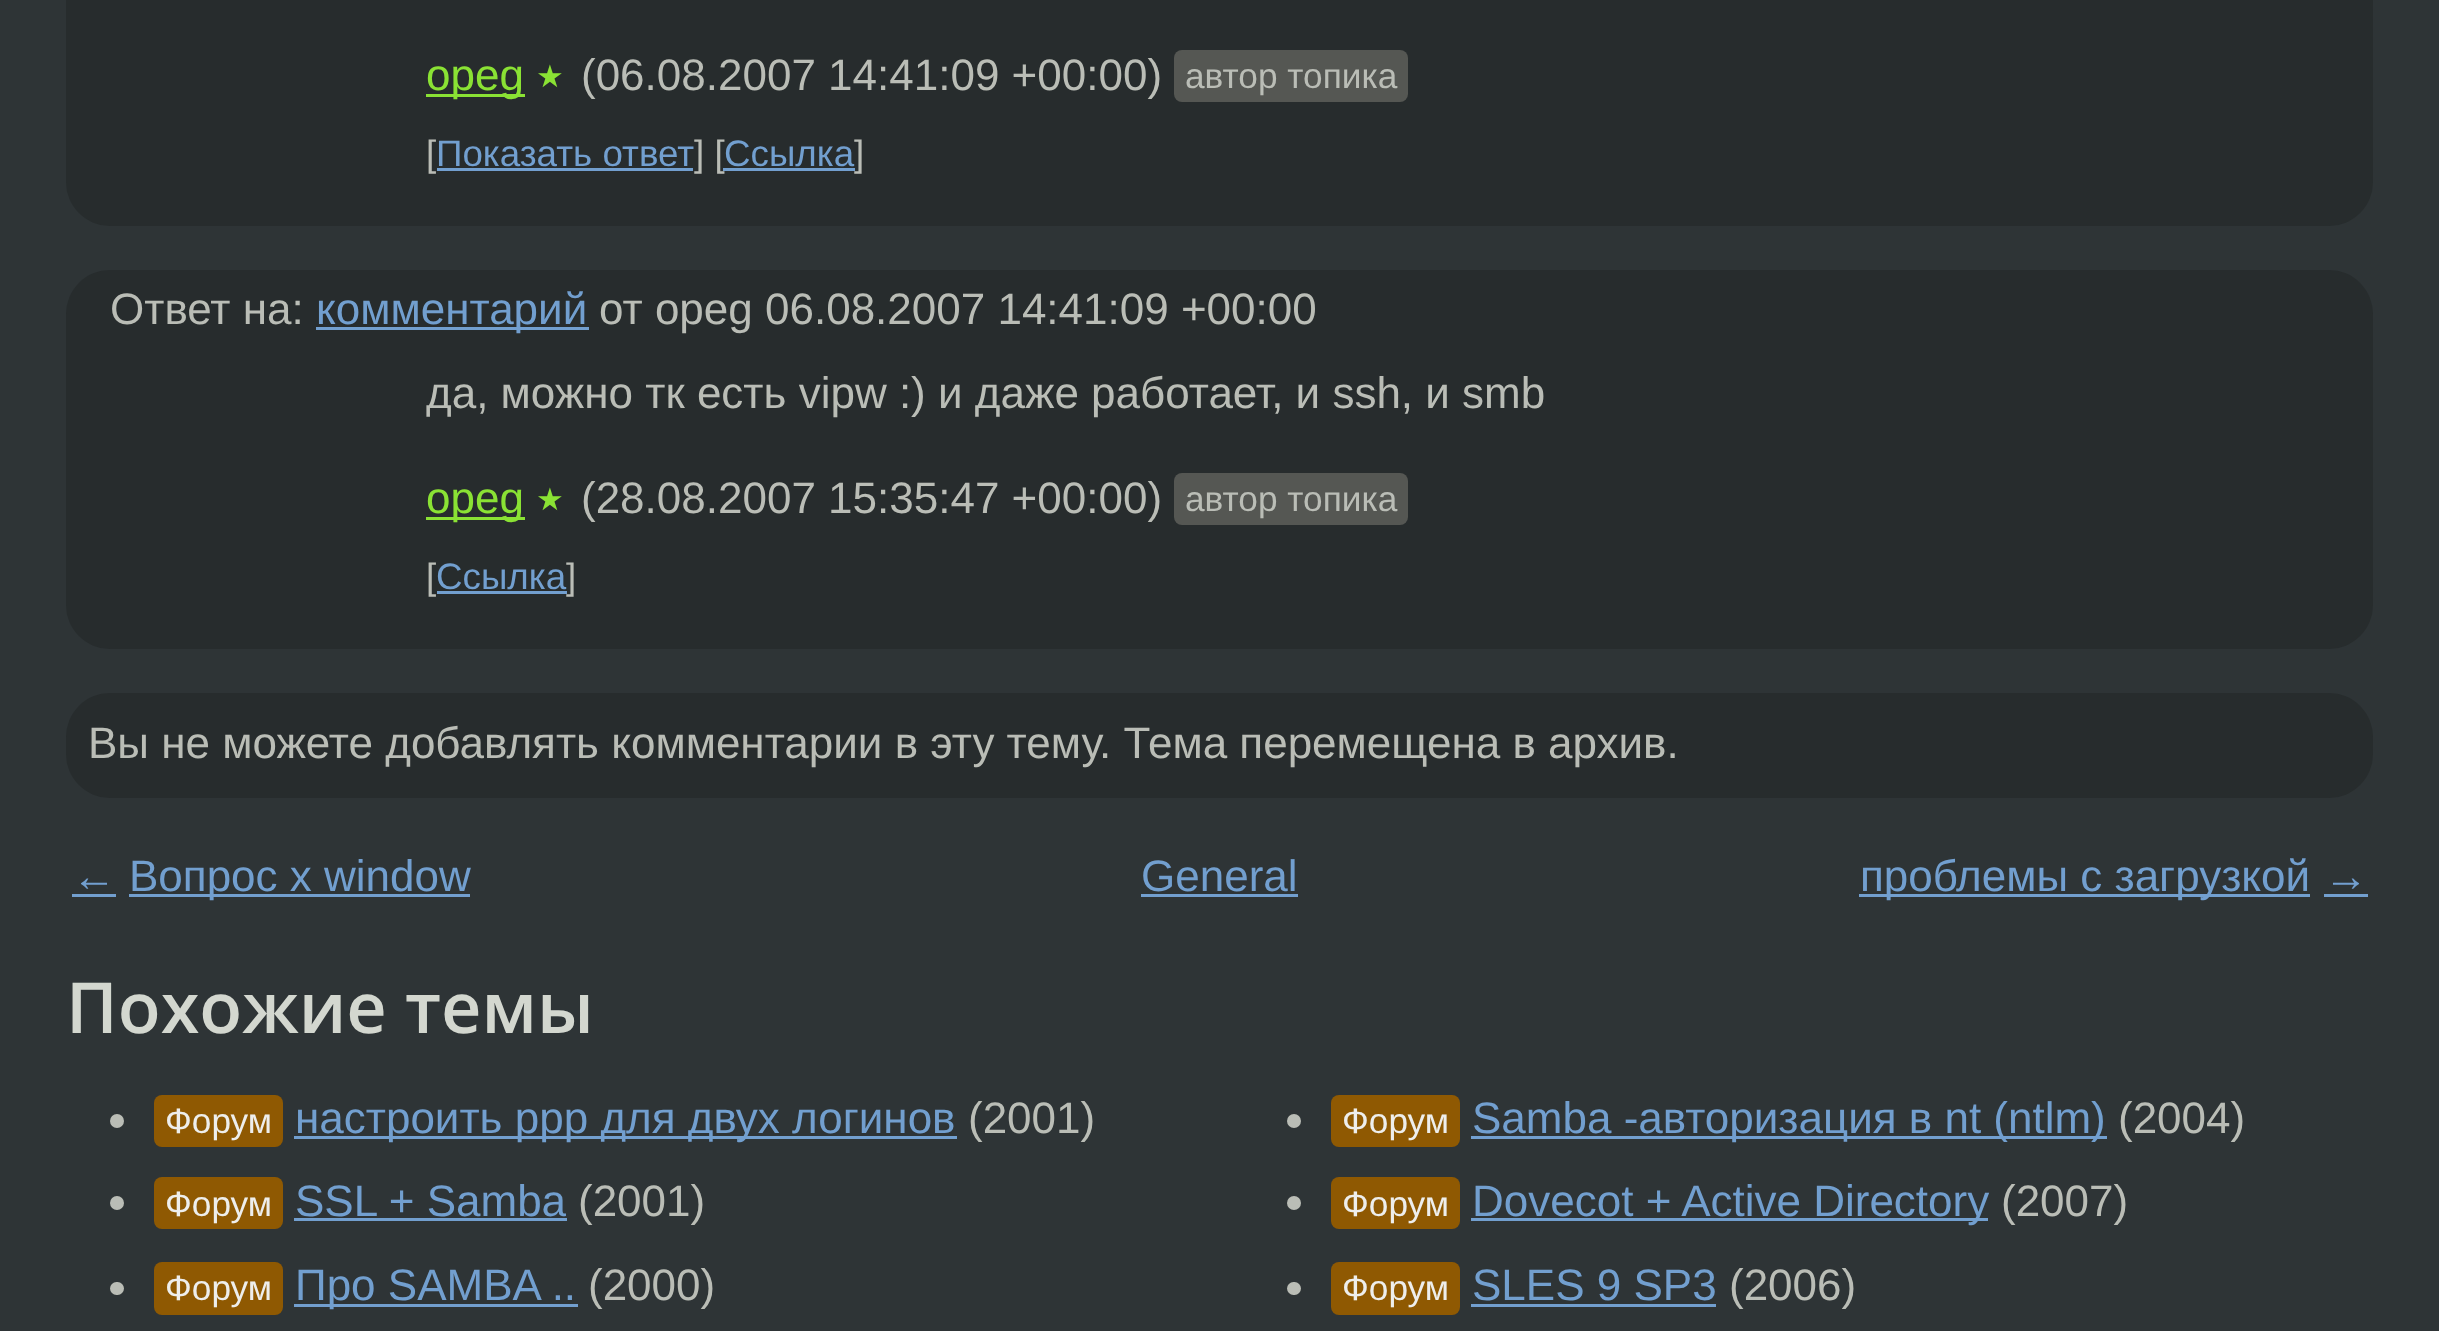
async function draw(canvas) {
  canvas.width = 2439;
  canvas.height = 1331;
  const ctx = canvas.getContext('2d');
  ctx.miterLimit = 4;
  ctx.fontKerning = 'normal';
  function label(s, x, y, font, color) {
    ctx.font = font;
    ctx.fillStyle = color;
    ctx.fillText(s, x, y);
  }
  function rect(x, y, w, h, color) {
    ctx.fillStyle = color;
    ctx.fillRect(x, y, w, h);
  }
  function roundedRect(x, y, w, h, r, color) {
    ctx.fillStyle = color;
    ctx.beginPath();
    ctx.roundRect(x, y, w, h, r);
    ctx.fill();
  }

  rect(0, 0, 2439, 1331, '#2e3436');
  roundedRect(66, -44, 2307, 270, 44, '#272c2d');
  rect(426, 94, 99, 3, '#8ae234');
  label('opeg', 426, 90, '44px Liberation Sans', '#8ae234');
  ctx.letterSpacing = '4px';
  label('★', 536, 87, '31px DejaVu Sans', '#8ae234');
  ctx.letterSpacing = '0px';
  label('(06.08.2007 14:41:09 +00:00)', 581, 90, '44px Liberation Sans', '#babdb6');
  roundedRect(1174, 50, 234, 52, 8, '#555753');
  label('автор топика', 1185, 88, '35.25px Liberation Sans', '#babdb6');
  label('[', 426, 166, '36.75px Liberation Sans', '#babdb6');
  rect(437, 168, 256, 3, '#729fcf');
  label('Показать ответ', 436, 166, '36.75px Liberation Sans', '#729fcf');
  label('] [', 694, 166, '36.75px Liberation Sans', '#babdb6');
  rect(723, 168, 132, 3, '#729fcf');
  label('Ссылка', 724, 166, '36.75px Liberation Sans', '#729fcf');
  label(']', 854, 166, '36.75px Liberation Sans', '#babdb6');
  roundedRect(66, 270, 2307, 379, 44, '#272c2d');
  label('Ответ на:', 110, 324, '44px Liberation Sans', '#babdb6');
  rect(316, 327, 273, 3, '#729fcf');
  label('комментарий', 316, 324, '44px Liberation Sans', '#729fcf');
  label('от opeg 06.08.2007 14:41:09 +00:00', 599, 324, '44px Liberation Sans', '#babdb6');
  label('да, можно тк есть vipw :) и даже работает, и ssh, и smb', 426, 408, '44px Liberation Sans', '#babdb6');
  rect(426, 517, 99, 3, '#8ae234');
  label('opeg', 426, 513, '44px Liberation Sans', '#8ae234');
  ctx.letterSpacing = '4px';
  label('★', 536, 510, '31px DejaVu Sans', '#8ae234');
  ctx.letterSpacing = '0px';
  label('(28.08.2007 15:35:47 +00:00)', 581, 513, '44px Liberation Sans', '#babdb6');
  roundedRect(1174, 473, 234, 52, 8, '#555753');
  label('автор топика', 1185, 511, '35.25px Liberation Sans', '#babdb6');
  label('[', 426, 589, '36.75px Liberation Sans', '#babdb6');
  rect(437, 591, 130, 3, '#729fcf');
  label('Ссылка', 436, 589, '36.75px Liberation Sans', '#729fcf');
  label(']', 566, 589, '36.75px Liberation Sans', '#babdb6');
  roundedRect(66, 693, 2307, 105, 44, '#272c2d');
  label('Вы не можете добавлять комментарии в эту тему. Тема перемещена в архив.', 88, 758, '44px Liberation Sans', '#babdb6');
  label('←', 72, 891, '44px Liberation Sans', '#729fcf');
  rect(72, 894, 44, 3, '#729fcf');
  rect(129, 894, 341, 3, '#729fcf');
  label('Вопрос x window', 129, 891, '44px Liberation Sans', '#729fcf');
  label('General', 1141, 891, '44px Liberation Sans', '#729fcf');
  rect(1141, 894, 157, 3, '#729fcf');
  rect(1859, 894, 451, 3, '#729fcf');
  label('проблемы с загрузкой', 1860, 891, '44px Liberation Sans', '#729fcf');
  label('→', 2324, 891, '44px Liberation Sans', '#729fcf');
  rect(2324, 894, 44, 3, '#729fcf');
  label('Похожие темы', 66, 1033, '600 70.25px Open Sans', '#d3d7cf');
  ctx.fillStyle = '#babdb6';
  ctx.beginPath();
  ctx.arc(117, 1121, 7, 0, 2 * Math.PI);
  ctx.fill();
  roundedRect(154, 1095, 129, 52, 8, '#8f5902');
  label('Форум', 165, 1133, '35.25px Liberation Sans', '#eeeeec');
  rect(294, 1136, 663, 3, '#729fcf');
  label('настроить ppp для двух логинов', 295, 1133, '44px Liberation Sans', '#729fcf');
  label('(2001)', 968, 1133, '44px Liberation Sans', '#babdb6');
  ctx.beginPath();
  ctx.arc(117, 1203, 7, 0, 2 * Math.PI);
  ctx.fill();
  roundedRect(154, 1177, 129, 52, 8, '#8f5902');
  label('Форум', 165, 1216, '35.25px Liberation Sans', '#eeeeec');
  label('SSL + Samba', 295, 1216, '44px Liberation Sans', '#729fcf');
  rect(294, 1218, 273, 3, '#729fcf');
  label('(2001)', 578, 1216, '44px Liberation Sans', '#babdb6');
  roundedRect(110, 1282, 14, 13, 6.5, '#babdb6');
  roundedRect(154, 1262, 129, 53, 8, '#8f5902');
  label('Форум', 165, 1300, '35.25px Liberation Sans', '#eeeeec');
  rect(294, 1304, 284, 3, '#729fcf');
  label('Про SAMBA ..', 295, 1300, '44px Liberation Sans', '#729fcf');
  label('(2000)', 588, 1300, '44px Liberation Sans', '#babdb6');
  ctx.beginPath();
  ctx.arc(1294, 1121, 7, 0, 2 * Math.PI);
  ctx.fill();
  roundedRect(1331, 1095, 129, 52, 8, '#8f5902');
  label('Форум', 1342, 1133, '35.25px Liberation Sans', '#eeeeec');
  rect(1471, 1136, 636, 3, '#729fcf');
  label('Samba -авторизация в nt (ntlm)', 1472, 1133, '44px Liberation Sans', '#729fcf');
  label('(2004)', 2118, 1133, '44px Liberation Sans', '#babdb6');
  ctx.beginPath();
  ctx.arc(1294, 1203, 7, 0, 2 * Math.PI);
  ctx.fill();
  roundedRect(1331, 1177, 129, 52, 8, '#8f5902');
  label('Форум', 1342, 1216, '35.25px Liberation Sans', '#eeeeec');
  rect(1471, 1218, 517, 3, '#729fcf');
  label('Dovecot + Active Directory', 1472, 1216, '44px Liberation Sans', '#729fcf');
  label('(2007)', 2001, 1216, '44px Liberation Sans', '#babdb6');
  roundedRect(1287, 1282, 14, 13, 6.5, '#babdb6');
  roundedRect(1331, 1262, 129, 53, 8, '#8f5902');
  label('Форум', 1342, 1300, '35.25px Liberation Sans', '#eeeeec');
  label('SLES 9 SP3', 1472, 1300, '44px Liberation Sans', '#729fcf');
  rect(1471, 1304, 245, 3, '#729fcf');
  label('(2006)', 1729, 1300, '44px Liberation Sans', '#babdb6');
}

draw(document.querySelector('canvas'));
